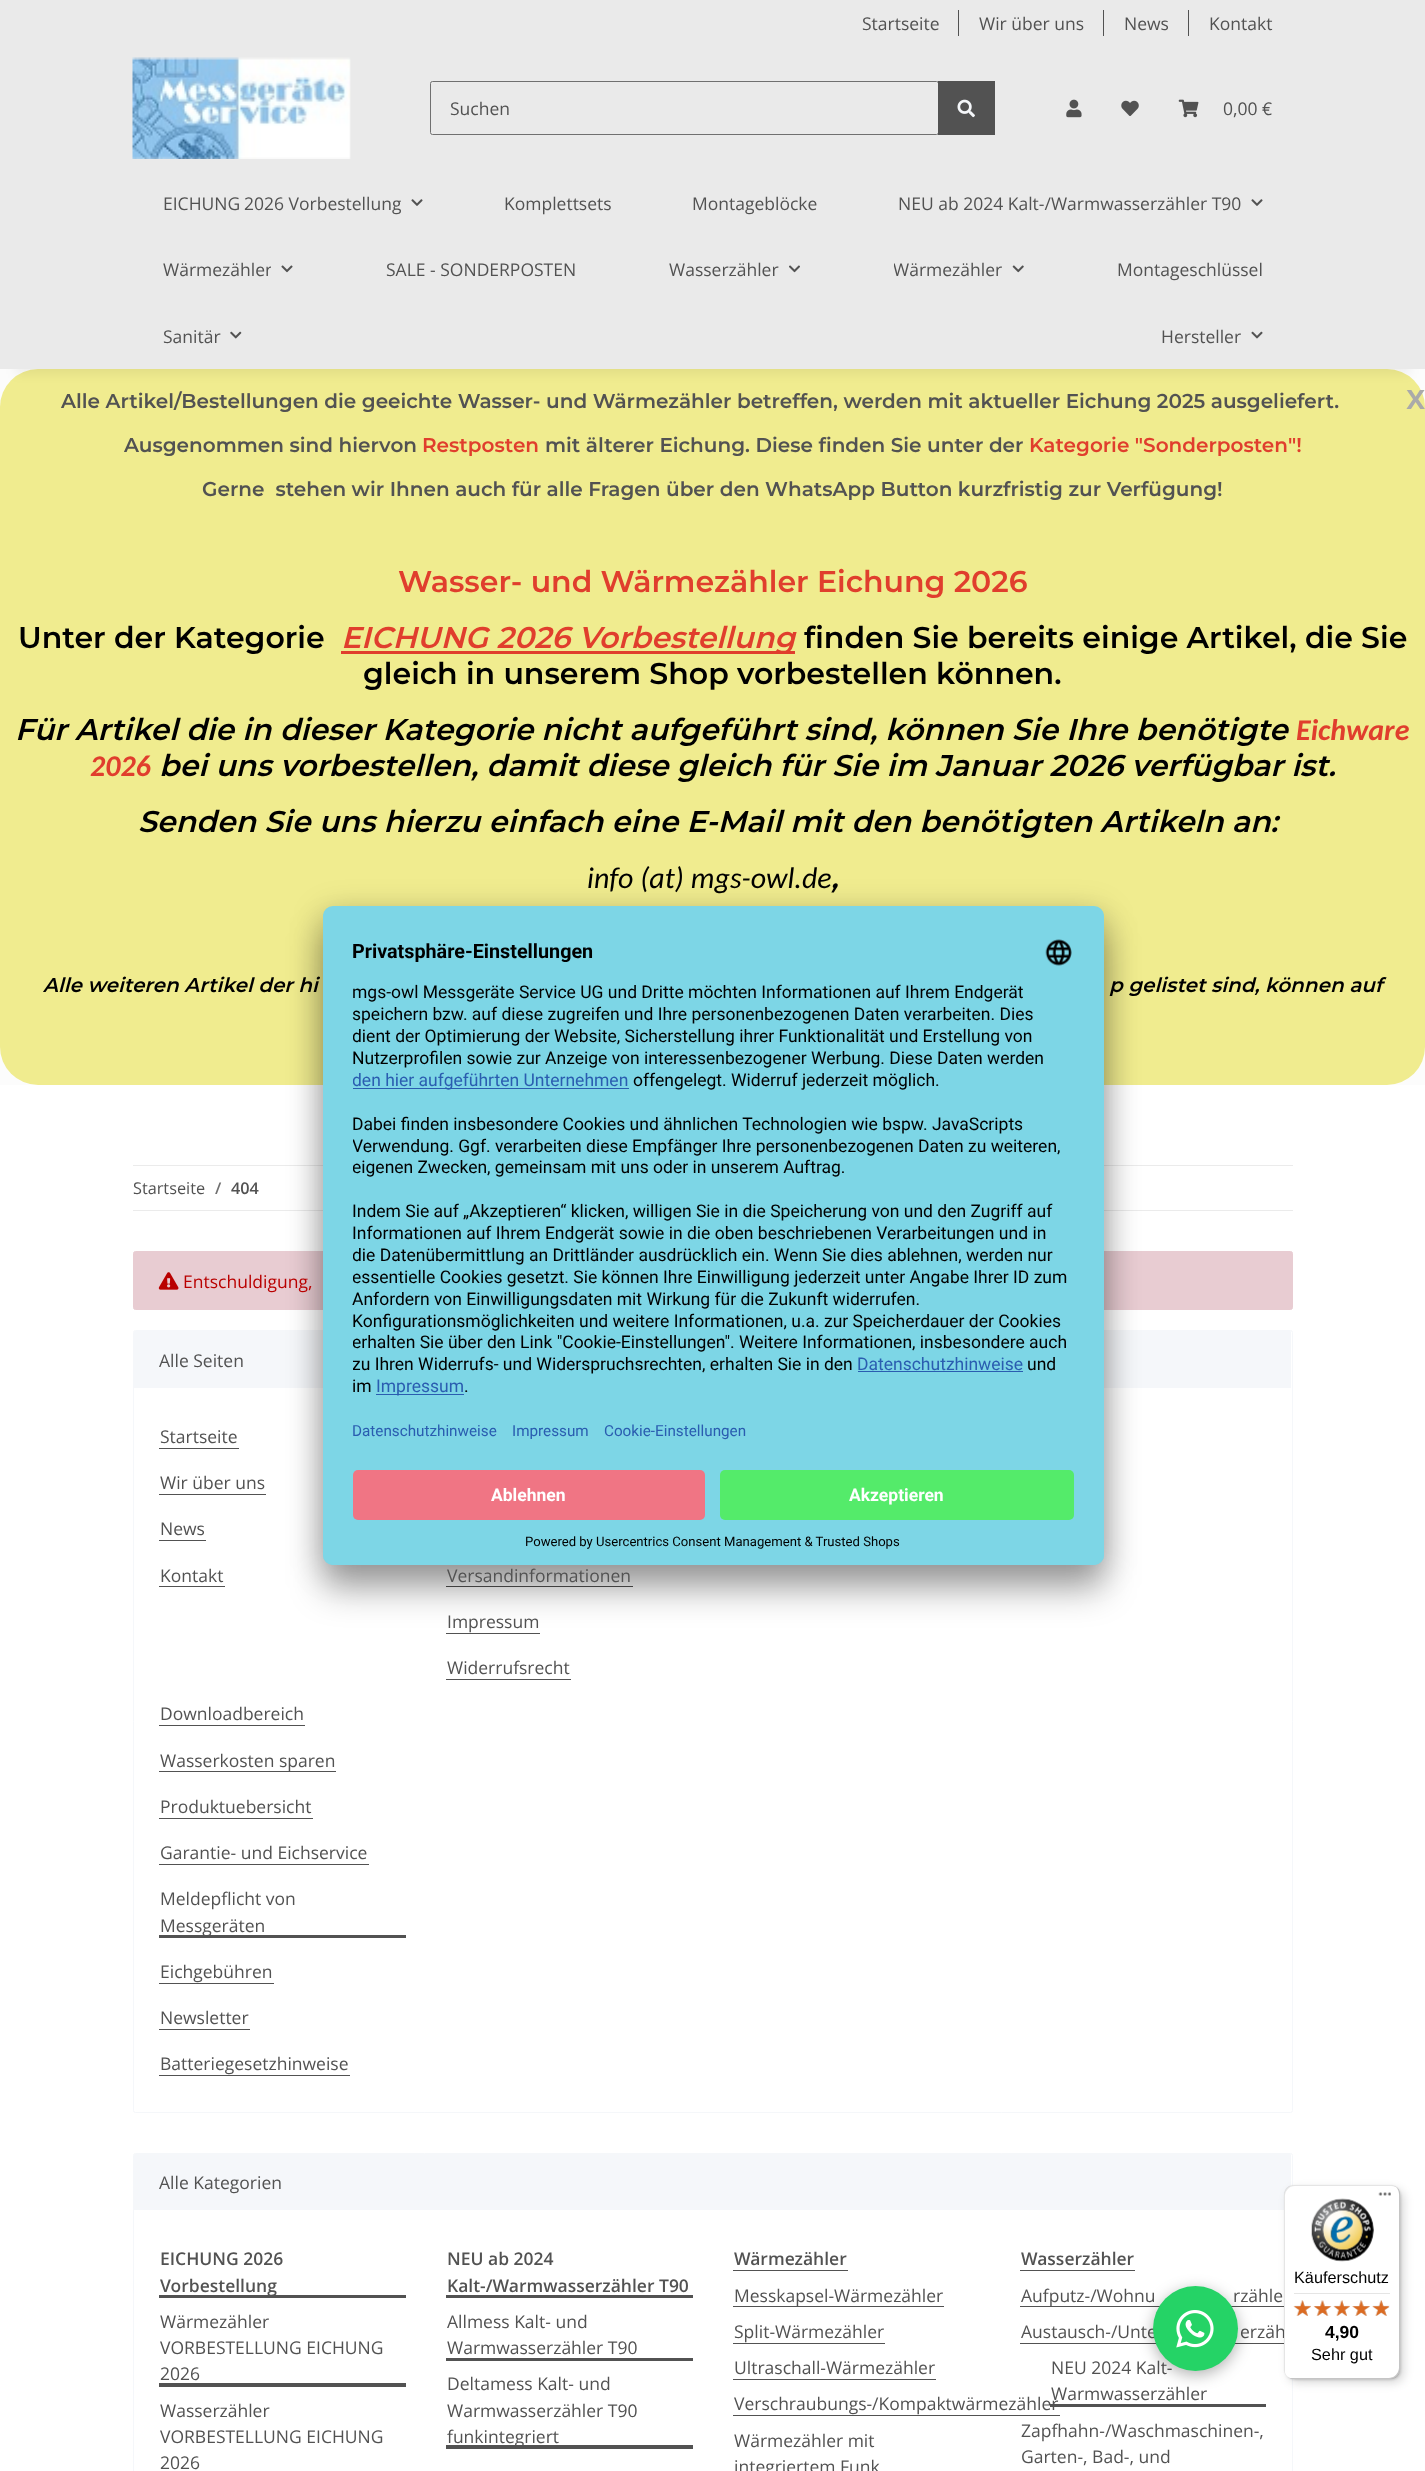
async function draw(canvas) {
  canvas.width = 1425;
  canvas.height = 2471;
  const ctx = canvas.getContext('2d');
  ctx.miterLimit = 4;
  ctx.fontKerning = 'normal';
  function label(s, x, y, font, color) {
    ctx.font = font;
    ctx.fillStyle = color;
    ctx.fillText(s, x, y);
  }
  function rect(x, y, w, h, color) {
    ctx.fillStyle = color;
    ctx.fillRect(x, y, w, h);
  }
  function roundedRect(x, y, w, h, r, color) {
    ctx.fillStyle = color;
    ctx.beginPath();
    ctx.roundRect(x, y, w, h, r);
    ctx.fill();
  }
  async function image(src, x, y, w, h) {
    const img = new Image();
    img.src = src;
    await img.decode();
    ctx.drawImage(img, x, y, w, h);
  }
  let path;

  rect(0, 0, 1425, 2471, '#fcfcfc');
  roundedRect(0, 369, 1425, 716, 38, '#f0ec8f');
  ctx.fillStyle = '#0000000f';
  ctx.filter = 'blur(5.5px)';
  ctx.beginPath();
  ctx.rect(15, 35, 1395, 339);
  ctx.fill();
  ctx.filter = 'none';
  rect(0, 0, 1425, 369, '#eaeaea');
  label('Startseite', 862, 30, '17.5px Open Sans', '#525252');
  rect(958, 10, 1, 26, '#525252');
  label('Wir über uns', 979, 30, '17.5px Open Sans', '#525252');
  rect(1103, 10, 1, 26, '#525252');
  label('News', 1124, 30, '17.5px Open Sans', '#525252');
  rect(1188, 10, 1, 26, '#525252');
  label('Kontakt', 1209, 30, '17.5px Open Sans', '#525252');
  await image('assets/img1.png', 132, 57, 219, 102);
  ctx.beginPath();
  ctx.roundRect(430.5, 81.5, 508, 53, 2);
  ctx.strokeStyle = '#707070';
  ctx.stroke();
  label('Suchen', 450, 115, '17.5px Open Sans', '#525252');
  rect(938, 81, 57, 54, '#525252');
  await image('assets/img2.png', 957, 99, 18, 19);
  await image('assets/img3.png', 1066, 99, 16, 19);
  await image('assets/img4.png', 1121, 100, 18, 16);
  await image('assets/img5.png', 1178, 99, 21, 19);
  label('0,00 €', 1223, 115, '17.5px Open Sans', '#525252');
  label('EICHUNG', 163, 210, '17.5px Open Sans', '#525252');
  ctx.save();
  ctx.beginPath();
  ctx.rect(163, 190, 238, 26);
  ctx.clip();
  label('2026 Vorbestellung', 244, 210, '17.5px Open Sans', '#525252');
  ctx.restore();
  await image('assets/img6.png', 411, 199, 12, 7);
  label('Komplettsets', 504, 210, '17.5px Open Sans', '#525252');
  label('Montageblöcke', 692, 210, '17.5px Open Sans', '#525252');
  label('NEU ab 2024 Kalt-/Warmwasserzähler T90', 898, 210, '17.5px Open Sans', '#525252');
  await image('assets/img6.png', 1251, 199, 12, 7);
  ctx.save();
  ctx.beginPath();
  ctx.rect(163, 256, 108, 27);
  ctx.clip();
  label('Wärmezähler', 163, 276, '17.5px Open Sans', '#525252');
  ctx.restore();
  await image('assets/img7.png', 281, 265, 12, 8);
  label('SALE - SONDERPOSTEN', 386, 276, '17.5px Open Sans', '#525252');
  label('Wasserzähler', 669, 276, '17.5px Open Sans', '#525252');
  await image('assets/img8.png', 789, 265, 11, 8);
  ctx.save();
  ctx.beginPath();
  ctx.rect(894, 256, 109, 27);
  ctx.clip();
  label('Wärmezähler', 893, 276, '17.5px Open Sans', '#525252');
  ctx.restore();
  await image('assets/img9.png', 1012, 265, 12, 8);
  label('Montageschlüssel', 1117, 276, '17.5px Open Sans', '#525252');
  label('Sanitär', 163, 343, '17.5px Open Sans', '#525252');
  await image('assets/img10.png', 230, 331, 12, 8);
  label('Hersteller', 1161, 343, '17.5px Open Sans', '#525252');
  await image('assets/img11.png', 1251, 331, 12, 8);
  label('Alle Artikel/Bestellungen die geeichte Wasser- und Wärmezähler betreffen, werden mit aktueller Eichung 2025 ausgeliefert.', 61, 408, '600 20px Montserrat', '#525252');
  label('Ausgenommen sind hiervon', 124, 452, '600 20px Montserrat', '#525252');
  label('Restposten', 422, 452, '600 20px Montserrat', '#e03e2d');
  label('mit älterer Eichung. Diese finden Sie unter der', 545, 452, '600 20px Montserrat', '#525252');
  label('Kategorie "Sonderposten"!', 1029, 452, '600 20px Montserrat', '#e03e2d');
  label('Gerne  stehen wir Ihnen auch für alle Fragen über den WhatsApp Button kurzfristig zur Verfügung!', 202, 496, '600 20px Montserrat', '#525252');
  label('Wasser- und Wärmezähler Eichung 2026', 398, 592, '600 30px Montserrat', '#e03e2d');
  label('Unter der Kategorie', 18, 648, '600 30px Montserrat', '#000');
  rect(341, 651, 454, 3, '#e03e2d');
  label('EICHUNG 2026 Vorbestellung', 341, 648, 'italic 600 30px Montserrat', '#e03e2d');
  label('finden Sie bereits einige Artikel, die Sie', 804, 648, '600 30px Montserrat', '#000');
  label('gleich in unserem Shop vorbestellen können.', 363, 684, '600 30px Montserrat', '#000');
  label('Für Artikel die in dieser Kategorie nicht aufgeführt sind, können Sie Ihre benötigte', 15, 740, 'italic 600 30px Montserrat', '#000');
  label('Eichware', 1296, 740, 'italic bold 30px Carlito', '#e03e2d');
  label('2026', 90, 776, 'italic bold 30px Carlito', '#e03e2d');
  label('bei uns vorbestellen, damit diese gleich für Sie im Januar 2026 verfügbar ist.', 159, 776, 'italic 600 30px Montserrat', '#000');
  label('Senden Sie uns hierzu einfach eine E-Mail mit den benötigten Artikeln an:', 138, 832, 'italic 600 30px Montserrat', '#000');
  label('info (at) mgs-owl.de', 587, 888, 'italic 30px Carlito', '#000');
  label(',', 831, 888, 'italic 600 30px Montserrat', '#000');
  label('Alle weiteren Artikel der hi', 43, 992, 'italic 600 20px Montserrat', '#000');
  label('p gelistet sind, können auf', 1109, 992, 'italic 600 20px Montserrat', '#000');
  label('x', 1406, 409, '600 35px Open Sans', '#aaa');
  rect(0, 1085, 1425, 1386, '#fff');
  rect(133, 1165, 1160, 1, '#ebebeb');
  rect(133, 1210, 1160, 1, '#ebebeb');
  ctx.fillStyle = '#e8ccd2';
  ctx.beginPath();
  ctx.roundRect(133.5, 1251.5, 1159, 58, 2);
  ctx.fill();
  ctx.strokeStyle = '#e8ccd2';
  ctx.stroke();
  ctx.beginPath();
  ctx.roundRect(133.5, 1330.5, 1159, 782, 2);
  ctx.strokeStyle = '#f5f7fa';
  ctx.stroke();
  ctx.fillStyle = '#f5f7fa';
  ctx.beginPath();
  ctx.roundRect(134, 1331, 1157, 57, [1, 1, 0, 0]);
  ctx.fill();
  rect(446, 1586, 187, 1, '#525252');
  rect(446, 1633, 94, 1, '#525252');
  ctx.fillStyle = '#0000004d';
  ctx.filter = 'blur(17.5px)';
  ctx.beginPath();
  ctx.roundRect(323, 931, 781, 659, 10);
  ctx.fill();
  ctx.filter = 'none';
  ctx.fillStyle = '#00000038';
  ctx.filter = 'blur(16px)';
  ctx.beginPath();
  ctx.roundRect(323, 913, 781, 658, 10);
  ctx.fill();
  ctx.filter = 'none';
  roundedRect(323, 906, 781, 659, 10, '#7dd6e6');
  ctx.save();
  ctx.beginPath();
  ctx.roundRect(323, 906, 781, 659, 10);
  ctx.clip();
  ctx.beginPath();
  ctx.roundRect(323, 906, 781, 554, [10, 10, 0, 0]);
  ctx.clip();
  rect(323, 908, 781, 552, '#7dd6e6');
  ctx.restore();
  label('Privatsphäre-Einstellungen', 352, 958, 'bold 19.75px Roboto', '#000');
  await image('assets/img12.png', 1045, 939, 27, 27);
  label('mgs-owl Messgeräte Service UG und Dritte möchten Informationen auf Ihrem Endgerät', 352, 998, '17.5px Roboto', '#000');
  label('speichern bzw. auf diese zugreifen und Ihre personenbezogenen Daten verarbeiten. Dies', 352, 1020, '17.5px Roboto', '#000');
  ctx.save();
  ctx.beginPath();
  ctx.rect(353, 978, 721, 425);
  ctx.clip();
  label('dient der Optimierung der Website, Sicherstellung ihrer Funktionalität und Erstellung von', 352, 1042, '17.5px Roboto', '#000');
  ctx.restore();
  label('Nutzerprofilen sowie zur Anzeige von interessenbezogener Werbung. Diese Daten werden', 352, 1064, '17.5px Roboto', '#000');
  rect(353, 1088, 276, 1, '#2a5db0');
  ctx.save();
  ctx.beginPath();
  ctx.rect(353, 978, 721, 425);
  ctx.clip();
  label('den hier aufgeführten Unternehmen', 352, 1086, '17.5px Roboto', '#2a5db0');
  ctx.restore();
  label('offengelegt. Widerruf jederzeit möglich.', 633, 1086, '17.5px Roboto', '#000');
  label('Dabei finden insbesondere Cookies und ähnlichen Technologien wie bspw. JavaScripts', 352, 1130, '17.5px Roboto', '#000');
  ctx.save();
  ctx.beginPath();
  ctx.rect(353, 978, 721, 425);
  ctx.clip();
  label('Verwendung. Ggf. verarbeiten diese Empfänger Ihre personenbezogenen Daten zu weiteren,', 352, 1152, '17.5px Roboto', '#000');
  label('eigenen Zwecken, gemeinsam mit uns oder in unserem Auftrag.', 352, 1173, '17.5px Roboto', '#000');
  ctx.restore();
  label('Indem Sie auf „Akzeptieren“ klicken, willigen Sie in die Speicherung von und den Zugriff auf', 352, 1217, '17.5px Roboto', '#000');
  label('Informationen auf Ihrem Endgerät sowie in die oben beschriebenen Verarbeitungen und in', 352, 1239, '17.5px Roboto', '#000');
  ctx.save();
  ctx.beginPath();
  ctx.rect(353, 978, 721, 425);
  ctx.clip();
  label('die Datenübermittlung an Drittländer ausdrücklich ein. Wenn Sie dies ablehnen, werden nur', 352, 1261, '17.5px Roboto', '#000');
  label('essentielle Cookies gesetzt. Sie können Ihre Einwilligung jederzeit unter Angabe Ihrer ID zum', 352, 1283, '17.5px Roboto', '#000');
  ctx.restore();
  label('Anfordern von Einwilligungsdaten mit Wirkung für die Zukunft widerrufen.', 352, 1305, '17.5px Roboto', '#000');
  label('Konfigurationsmöglichkeiten und weitere Informationen, u.a. zur Speicherdauer der Cookies', 352, 1327, '17.5px Roboto', '#000');
  ctx.save();
  ctx.beginPath();
  ctx.rect(353, 978, 721, 425);
  ctx.clip();
  label('erhalten Sie über den Link "Cookie-Einstellungen". Weitere Informationen, insbesondere auch', 352, 1348, '17.5px Roboto', '#000');
  label('zu Ihren Widerrufs- und Widerspruchsrechten, erhalten Sie in den', 352, 1370, '17.5px Roboto', '#000');
  ctx.restore();
  label('Datenschutzhinweise', 857, 1370, '17.5px Roboto', '#2a5db0');
  rect(858, 1371, 165, 1, '#2a5db0');
  label('und', 1027, 1370, '17.5px Roboto', '#000');
  label('im', 352, 1392, '17.5px Roboto', '#000');
  rect(376, 1394, 88, 1, '#2a5db0');
  label('Impressum', 376, 1392, '17.5px Roboto', '#2a5db0');
  label('.', 464, 1392, '17.5px Roboto', '#000');
  label('Datenschutzhinweise', 352, 1436, '15.25px Roboto', '#2a5db0');
  label('Impressum', 512, 1436, '15.25px Roboto', '#2a5db0');
  label('Cookie-Einstellungen', 604, 1436, '15.25px Roboto', '#2a5db0');
  ctx.fillStyle = '#7dd6e6';
  ctx.beginPath();
  ctx.roundRect(323, 1460, 781, 105, [0, 0, 10, 10]);
  ctx.fill();
  roundedRect(353, 1470, 352, 50, 5, '#f07584');
  label('Ablehnen', 491, 1501, 'bold 17.5px Roboto', '#fff');
  roundedRect(720, 1470, 354, 50, 5, '#54eb6a');
  label('Akzeptieren', 849, 1501, 'bold 17.5px Roboto', '#fff');
  label('Powered by Usercentrics Consent Management & Trusted Shops', 525, 1546, '13.1px Roboto', '#000');
  label('Startseite', 133, 1194, '16.25px Open Sans', '#525252');
  label('/', 215, 1194, '600 16.25px Open Sans', '#707070');
  label('404', 231, 1194, '600 16.25px Open Sans', '#525252');
  await image('assets/img13.png', 158, 1272, 21, 18);
  label('Entschuldigung,', 183, 1288, '17.5px Open Sans', '#b90000');
  label('Alle Seiten', 159, 1367, '17.5px Open Sans', '#525252');
  label('Startseite', 160, 1443, '17.5px Open Sans', '#525252');
  rect(159, 1448, 80, 1, '#525252');
  label('Wir über uns', 160, 1489, '17.5px Open Sans', '#525252');
  rect(159, 1494, 107, 1, '#525252');
  label('News', 160, 1535, '17.5px Open Sans', '#525252');
  rect(159, 1540, 47, 1, '#525252');
  label('Kontakt', 160, 1582, '17.5px Open Sans', '#525252');
  rect(159, 1586, 66, 1, '#525252');
  label('Versandinformationen', 447, 1582, '17.5px Open Sans', '#525252');
  label('Impressum', 447, 1628, '17.5px Open Sans', '#525252');
  label('Widerrufsrecht', 447, 1674, '17.5px Open Sans', '#525252');
  rect(446, 1679, 125, 1, '#525252');
  label('Downloadbereich', 160, 1720, '17.5px Open Sans', '#525252');
  rect(159, 1725, 146, 1, '#525252');
  label('Wasserkosten sparen', 160, 1767, '17.5px Open Sans', '#525252');
  rect(159, 1771, 177, 1, '#525252');
  label('Produktuebersicht', 160, 1813, '17.5px Open Sans', '#525252');
  rect(159, 1818, 154, 1, '#525252');
  label('Garantie- und Eichservice', 160, 1859, '17.5px Open Sans', '#525252');
  rect(159, 1864, 210, 1, '#525252');
  label('Meldepflicht von', 160, 1905, '17.5px Open Sans', '#525252');
  label('Messgeräten', 160, 1932, '17.5px Open Sans', '#525252');
  rect(159, 1935, 247, 3, '#525252');
  label('Eichgebühren', 160, 1978, '17.5px Open Sans', '#525252');
  rect(159, 1983, 115, 1, '#525252');
  label('Newsletter', 160, 2024, '17.5px Open Sans', '#525252');
  rect(159, 2029, 91, 1, '#525252');
  label('Batteriegesetzhinweise', 160, 2070, '17.5px Open Sans', '#525252');
  rect(159, 2075, 191, 1, '#525252');
  ctx.beginPath();
  ctx.roundRect(133.5, 2153.5, 1159, 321, 2);
  ctx.stroke();
  ctx.fillStyle = '#f5f7fa';
  ctx.beginPath();
  ctx.roundRect(134, 2154, 1157, 56, [1, 1, 0, 0]);
  ctx.fill();
  label('Alle Kategorien', 159, 2189, '17.5px Open Sans', '#525252');
  label('EICHUNG 2026', 160, 2265, '600 17.5px Open Sans', '#525252');
  label('Vorbestellung', 160, 2292, '600 17.5px Open Sans', '#525252');
  rect(159, 2295, 247, 3, '#525252');
  label('Wärmezähler', 160, 2328, '17.5px Open Sans', '#525252');
  label('VORBESTELLUNG EICHUNG', 160, 2354, '17.5px Open Sans', '#525252');
  label('2026', 160, 2380, '17.5px Open Sans', '#525252');
  rect(159, 2383, 247, 4, '#525252');
  label('Wasserzähler', 160, 2417, '17.5px Open Sans', '#525252');
  label('VORBESTELLUNG EICHUNG', 160, 2443, '17.5px Open Sans', '#525252');
  label('2026', 160, 2469, '17.5px Open Sans', '#525252');
  label('NEU ab 2024', 447, 2265, '600 17.5px Open Sans', '#525252');
  label('Kalt-/Warmwasserzähler T90', 447, 2292, '600 17.5px Open Sans', '#525252');
  rect(446, 2295, 247, 3, '#525252');
  label('Allmess Kalt- und', 447, 2328, '17.5px Open Sans', '#525252');
  label('Warmwasserzähler T90', 447, 2354, '17.5px Open Sans', '#525252');
  rect(446, 2358, 247, 3, '#525252');
  label('Deltamess Kalt- und', 447, 2390, '17.5px Open Sans', '#525252');
  label('Warmwasserzähler T90', 447, 2417, '17.5px Open Sans', '#525252');
  label('funkintegriert', 447, 2443, '17.5px Open Sans', '#525252');
  rect(446, 2445, 247, 4, '#525252');
  label('Wärmezähler', 734, 2265, '600 17.5px Open Sans', '#525252');
  rect(733, 2270, 115, 1, '#525252');
  label('Messkapsel-Wärmezähler', 734, 2302, '17.5px Open Sans', '#525252');
  rect(733, 2306, 211, 1, '#525252');
  label('Split-Wärmezähler', 734, 2338, '17.5px Open Sans', '#525252');
  rect(733, 2343, 152, 1, '#525252');
  label('Ultraschall-Wärmezähler', 734, 2374, '17.5px Open Sans', '#525252');
  rect(733, 2379, 203, 1, '#525252');
  label('Verschraubungs-/Kompaktwärmezähler', 734, 2410, '17.5px Open Sans', '#525252');
  rect(733, 2415, 327, 1, '#525252');
  label('Wärmezähler mit', 734, 2447, '17.5px Open Sans', '#525252');
  label('integriertem Funk', 734, 2473, '17.5px Open Sans', '#525252');
  label('Wasserzähler', 1021, 2265, '600 17.5px Open Sans', '#525252');
  rect(1020, 2270, 115, 1, '#525252');
  label('Aufputz-/Wohnu', 1021, 2302, '17.5px Open Sans', '#525252');
  label('rzähle', 1233, 2302, '17.5px Open Sans', '#525252');
  rect(1020, 2306, 264, 1, '#525252');
  label('Austausch-/Unte', 1021, 2338, '17.5px Open Sans', '#525252');
  label('erzäh', 1240, 2338, '17.5px Open Sans', '#525252');
  rect(1020, 2343, 264, 1, '#525252');
  label('NEU 2024 Kalt-', 1051, 2374, '17.5px Open Sans', '#525252');
  label('Warmwasserzähler', 1051, 2400, '17.5px Open Sans', '#525252');
  rect(1050, 2404, 216, 3, '#525252');
  label('Zapfhahn-/Waschmaschinen-,', 1021, 2437, '17.5px Open Sans', '#525252');
  label('Garten-, Bad-, und', 1021, 2463, '17.5px Open Sans', '#525252');
  ctx.fillStyle = '#0000004d';
  ctx.filter = 'blur(7.5px)';
  ctx.beginPath();
  ctx.roundRect(1153, 2290, 85, 85, 42.5);
  ctx.fill();
  ctx.filter = 'none';
  ctx.fillStyle = '#25d366';
  ctx.beginPath();
  ctx.arc(1195.5, 2328.5, 42.5, 0, 2 * Math.PI);
  ctx.fill();
  await image('assets/img14.png', 1176, 2310, 38, 38);
  ctx.fillStyle = '#00000026';
  ctx.filter = 'blur(5px)';
  ctx.beginPath();
  ctx.roundRect(1288, 2189, 116, 194, 10);
  ctx.fill();
  ctx.filter = 'none';
  ctx.filter = 'blur(1px)';
  ctx.beginPath();
  ctx.roundRect(1285, 2186, 116, 194, 10);
  ctx.fill();
  ctx.filter = 'none';
  roundedRect(1284, 2185, 116, 194, 10, '#fff');
  ctx.fillStyle = '#0000001a';
  path = new Path2D('M1295 2186H1391C1394 2186 1396 2187 1398 2188C1396 2186 1393 2185 1390 2185H1294C1288 2185 1284 2189 1284 2195V2369C1284 2371 1285 2374 1286 2375C1285 2374 1285 2372 1285 2370V2196C1285 2191 1289 2186 1295 2186Z');
  ctx.fill(path);
  ctx.fillStyle = '#00000033';
  path = new Path2D('M1288 2377C1290 2378 1292 2379 1294 2379H1390C1396 2379 1400 2375 1400 2369V2195C1400 2192 1399 2189 1397 2187C1398 2189 1399 2191 1399 2194V2368C1399 2373 1394 2378 1389 2378H1292C1291 2378 1289 2378 1288 2377Z');
  ctx.fill(path);
  ctx.fillStyle = '#32323233';
  path = new Path2D('M1288 2377C1289 2378 1292 2379 1294 2379H1390C1396 2379 1400 2375 1400 2369V2195C1400 2192 1399 2189 1396 2187C1398 2189 1399 2192 1399 2194V2368C1399 2374 1395 2378 1389 2378H1293C1291 2378 1289 2378 1288 2377Z');
  ctx.fill(path);
  ctx.fillStyle = '#ffffff4d';
  path = new Path2D('M1286 2375C1288 2378 1291 2379 1294 2379H1390C1396 2379 1400 2375 1400 2369V2195C1400 2192 1399 2189 1396 2187C1398 2189 1399 2192 1399 2194V2368C1399 2374 1395 2378 1389 2378H1293C1291 2378 1288 2377 1286 2375Z');
  ctx.fill(path);
  await image('assets/img15.png', 1378, 2192, 13, 4);
  await image('assets/img16.png', 1311, 2198, 63, 64);
  label('Käuferschutz', 1294, 2283, '16.25px Liberation Sans', '#000');
  rect(1294, 2293, 96, 1, '#e5e5e5');
  await image('assets/img22.png', 1294, 2300, 17, 16);
  await image('assets/img17.png', 1293, 2300, 18, 16);
  await image('assets/img23.png', 1314, 2300, 17, 16);
  await image('assets/img18.png', 1313, 2300, 19, 16);
  await image('assets/img24.png', 1334, 2300, 16, 16);
  await image('assets/img19.png', 1333, 2300, 17, 16);
  await image('assets/img25.png', 1352, 2300, 18, 16);
  await image('assets/img20.png', 1352, 2300, 18, 16);
  await image('assets/img26.png', 1372, 2300, 18, 16);
  await image('assets/img21.png', 1372, 2300, 17, 16);
  label('4,90', 1325, 2338, 'bold 17.5px Liberation Sans', '#000');
  label('Sehr gut', 1311, 2360, '16.25px Liberation Sans', '#000');
}

draw(document.querySelector('canvas'));
